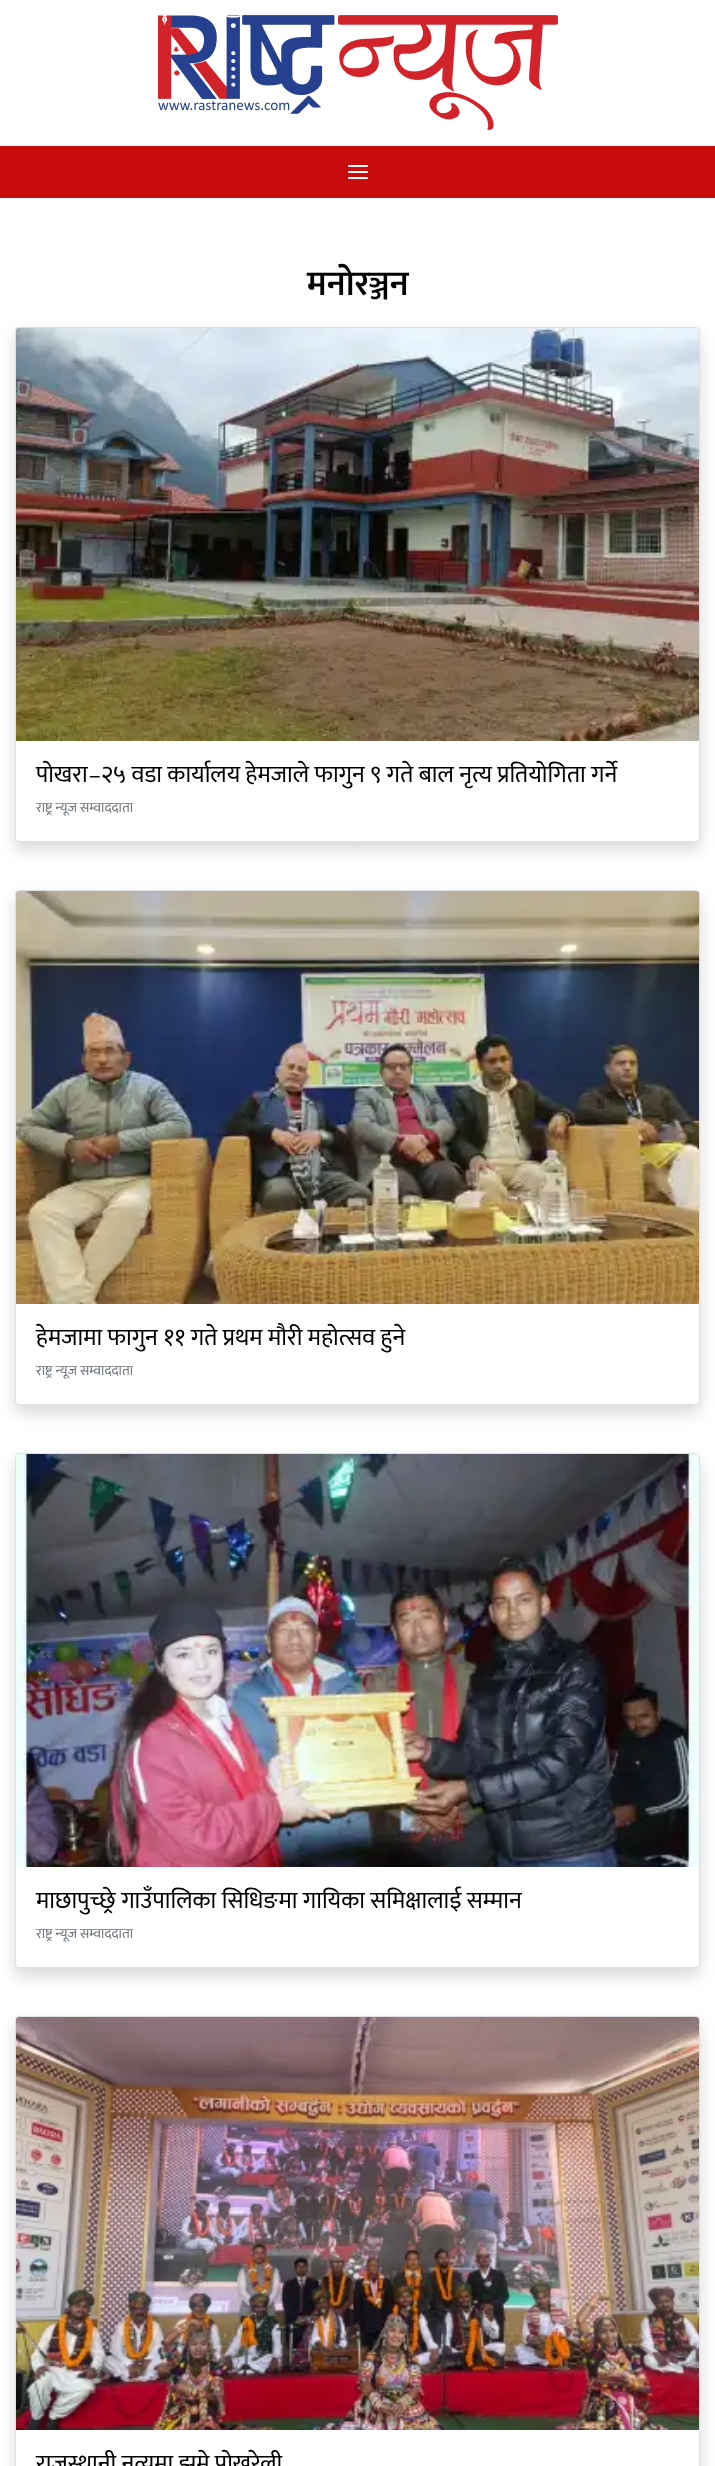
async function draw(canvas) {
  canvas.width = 715;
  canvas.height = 2466;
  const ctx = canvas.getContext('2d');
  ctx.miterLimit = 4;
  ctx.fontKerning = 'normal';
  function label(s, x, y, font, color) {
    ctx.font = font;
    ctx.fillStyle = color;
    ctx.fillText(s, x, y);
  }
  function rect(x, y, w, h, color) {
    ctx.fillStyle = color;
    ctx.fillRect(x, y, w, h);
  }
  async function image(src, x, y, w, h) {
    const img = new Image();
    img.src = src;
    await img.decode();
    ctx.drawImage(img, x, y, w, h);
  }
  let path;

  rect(0, 0, 715, 2466, '#fff');
  await image('assets/img1.png', 158, 15, 400, 115);
  rect(0, 146, 715, 52, '#c90d0d');
  await image('assets/img2.png', 348, 165, 20, 14);
  label('मनोरञ्जन', 307, 295, '600 35px Mukta', '#000');
  ctx.fillStyle = '#00000026';
  ctx.filter = 'blur(8px)';
  ctx.beginPath();
  ctx.roundRect(15, 335, 685, 515, 4);
  ctx.fill();
  ctx.filter = 'none';
  ctx.fillStyle = '#fff';
  ctx.beginPath();
  ctx.roundRect(15.5, 327.5, 684, 514, 3.5);
  ctx.fill();
  ctx.strokeStyle = '#dfdfdf';
  ctx.stroke();
  await image('assets/img3.png', 16, 328, 683, 413);
  label('पोखरा–२५ वडा कार्यालय हेमजाले फागुन ९ गते बाल नृत्य प्रतियोगिता गर्ने', 36, 782, '24px Mukta', '#000');
  label('राष्ट्र न्यूज सम्वाददाता', 36, 812, '14px Mukta', '#6c757d');
  ctx.fillStyle = '#00000026';
  ctx.filter = 'blur(8px)';
  ctx.beginPath();
  ctx.roundRect(15, 898, 685, 515, 4);
  ctx.fill();
  ctx.filter = 'none';
  ctx.fillStyle = '#fff';
  ctx.beginPath();
  ctx.roundRect(15.5, 890.5, 684, 514, 3.5);
  ctx.fill();
  ctx.stroke();
  await image('assets/img4.png', 16, 891, 683, 413);
  label('हेमजामा फागुन ११ गते प्रथम मौरी महोत्सव हुने', 36, 1345, '24px Mukta', '#000');
  label('राष्ट्र न्यूज सम्वाददाता', 36, 1375, '14px Mukta', '#6c757d');
  ctx.fillStyle = '#00000026';
  ctx.filter = 'blur(8px)';
  ctx.beginPath();
  ctx.roundRect(15, 1461, 685, 515, 4);
  ctx.fill();
  ctx.filter = 'none';
  ctx.fillStyle = '#fff';
  ctx.beginPath();
  ctx.roundRect(15.5, 1453.5, 684, 514, 3.5);
  ctx.fill();
  ctx.stroke();
  await image('assets/img5.png', 16, 1454, 683, 413);
  label('माछापुच्छ्रे गाउँपालिका सिधिङमा गायिका समिक्षालाई सम्मान', 36, 1908, '24px Mukta', '#000');
  label('राष्ट्र न्यूज सम्वाददाता', 36, 1938, '14px Mukta', '#6c757d');
  ctx.save();
  path = new Path2D('M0 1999H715V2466H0ZM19 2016H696C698 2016 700 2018 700 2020V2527C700 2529 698 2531 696 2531H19C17 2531 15 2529 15 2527V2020C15 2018 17 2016 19 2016Z');
  ctx.clip(path, 'evenodd');
  ctx.fillStyle = '#00000026';
  ctx.filter = 'blur(8px)';
  ctx.beginPath();
  ctx.roundRect(15, 2024, 685, 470, 4);
  ctx.fill();
  ctx.filter = 'none';
  ctx.restore();
  ctx.beginPath();
  ctx.roundRect(15.5, 2016.5, 684, 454, 3.5);
  ctx.stroke();
  await image('assets/img6.png', 16, 2017, 683, 413);
  label('राजस्थानी नृत्यमा झुमे पोखरेली', 36, 2471, '24px Mukta', '#000');
}

draw(document.querySelector('canvas'));
